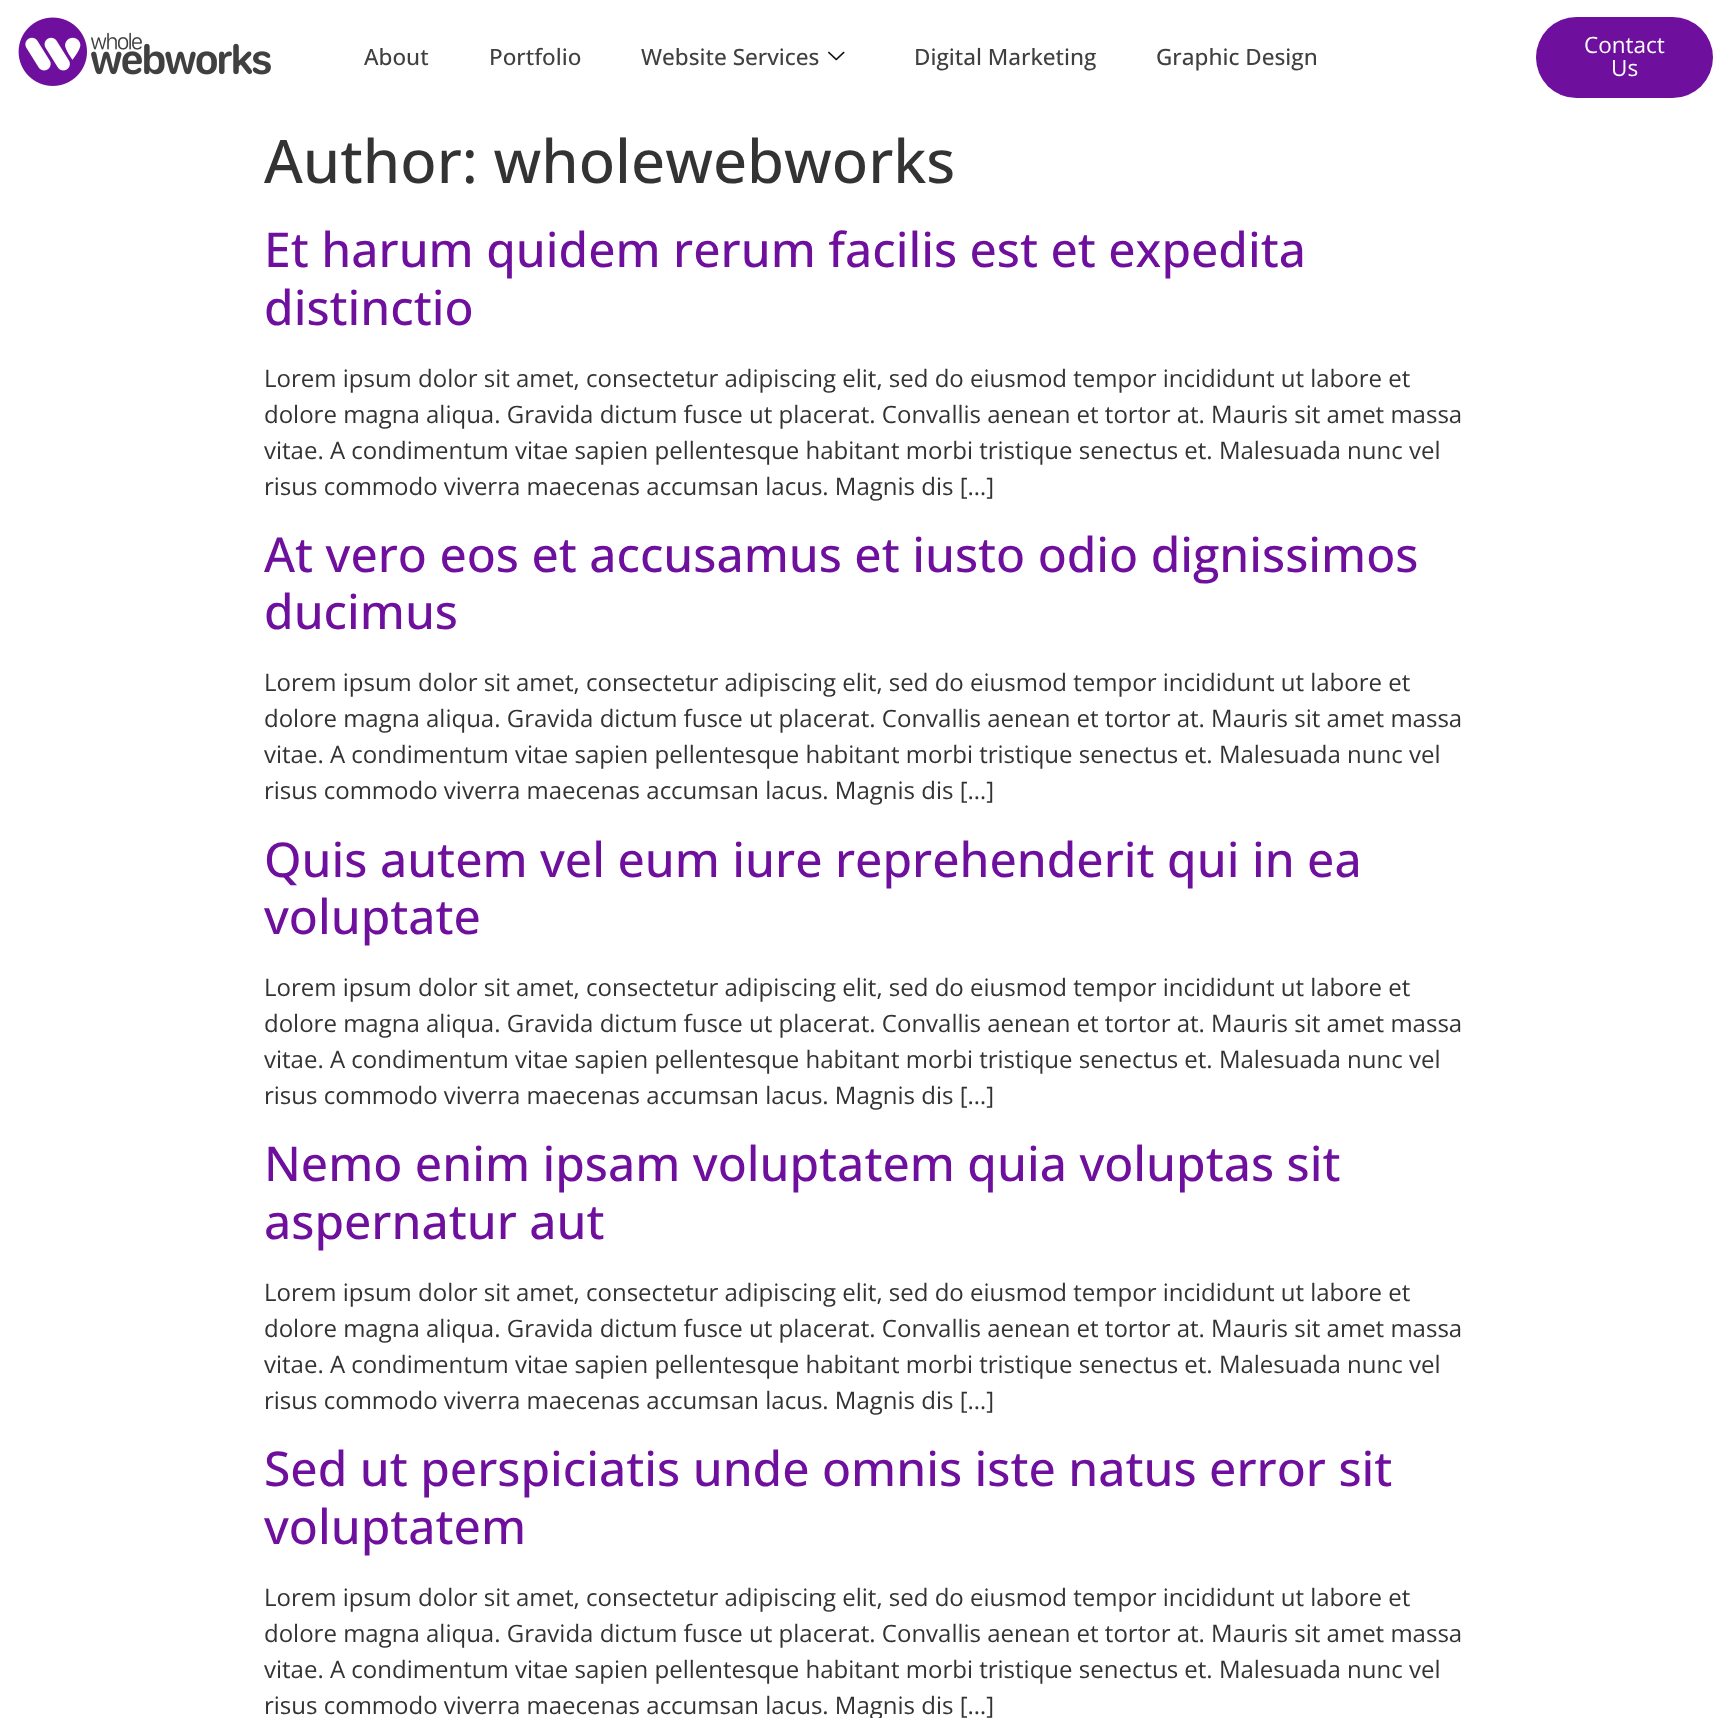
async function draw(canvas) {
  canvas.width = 1727;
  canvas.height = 1718;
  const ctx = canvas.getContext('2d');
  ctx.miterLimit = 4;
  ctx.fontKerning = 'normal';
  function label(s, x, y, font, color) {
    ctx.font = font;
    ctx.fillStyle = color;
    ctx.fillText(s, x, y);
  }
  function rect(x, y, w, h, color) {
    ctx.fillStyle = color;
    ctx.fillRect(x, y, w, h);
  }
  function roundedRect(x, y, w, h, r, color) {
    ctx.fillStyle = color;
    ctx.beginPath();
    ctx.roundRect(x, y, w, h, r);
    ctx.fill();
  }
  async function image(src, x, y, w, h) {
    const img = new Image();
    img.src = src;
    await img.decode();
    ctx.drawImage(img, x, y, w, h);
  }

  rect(0, 0, 1727, 1718, '#fff');
  await image('assets/img1.png', 18, 17, 253, 69);
  label('About', 364, 65, '500 22.5px Open Sans', '#404041');
  label('Portfolio', 489, 65, '500 22.5px Open Sans', '#404041');
  label('Website Services', 641, 65, '500 22.5px Open Sans', '#404041');
  await image('assets/img2.png', 828, 51, 17, 10);
  label('Digital Marketing', 914, 65, '500 22.5px Open Sans', '#404041');
  label('Graphic Design', 1156, 65, '500 22.5px Open Sans', '#404041');
  roundedRect(1536, 17, 177, 81, 40.5, '#6e0f9d');
  label('Contact', 1584, 53, '22.5px Open Sans', '#fff');
  label('Us', 1611, 76, '22.5px Open Sans', '#fff');
  label('Author: wholewebworks', 264, 183, '500 60px Open Sans', '#333');
  label('Et harum quidem rerum facilis est et expedita', 264, 267, '500 48px Open Sans', '#6e0f9d');
  label('distinctio', 264, 325, '500 48px Open Sans', '#6e0f9d');
  label('Lorem ipsum dolor sit amet, consectetur adipiscing elit, sed do eiusmod tempor incididunt ut labore et', 264, 387, '24px Open Sans', '#333');
  label('dolore magna aliqua. Gravida dictum fusce ut placerat. Convallis aenean et tortor at. Mauris sit amet massa', 264, 423, '24px Open Sans', '#333');
  label('vitae. A condimentum vitae sapien pellentesque habitant morbi tristique senectus et. Malesuada nunc vel', 264, 459, '24px Open Sans', '#333');
  label('risus commodo viverra maecenas accumsan lacus. Magnis dis […]', 264, 495, '24px Open Sans', '#333');
  label('At vero eos et accusamus et iusto odio dignissimos', 264, 572, '500 48px Open Sans', '#6e0f9d');
  label('ducimus', 264, 629, '500 48px Open Sans', '#6e0f9d');
  label('Lorem ipsum dolor sit amet, consectetur adipiscing elit, sed do eiusmod tempor incididunt ut labore et', 264, 691, '24px Open Sans', '#333');
  label('dolore magna aliqua. Gravida dictum fusce ut placerat. Convallis aenean et tortor at. Mauris sit amet massa', 264, 727, '24px Open Sans', '#333');
  label('vitae. A condimentum vitae sapien pellentesque habitant morbi tristique senectus et. Malesuada nunc vel', 264, 763, '24px Open Sans', '#333');
  label('risus commodo viverra maecenas accumsan lacus. Magnis dis […]', 264, 799, '24px Open Sans', '#333');
  label('Quis autem vel eum iure reprehenderit qui in ea', 264, 877, '500 48px Open Sans', '#6e0f9d');
  label('voluptate', 264, 934, '500 48px Open Sans', '#6e0f9d');
  label('Lorem ipsum dolor sit amet, consectetur adipiscing elit, sed do eiusmod tempor incididunt ut labore et', 264, 996, '24px Open Sans', '#333');
  label('dolore magna aliqua. Gravida dictum fusce ut placerat. Convallis aenean et tortor at. Mauris sit amet massa', 264, 1032, '24px Open Sans', '#333');
  label('vitae. A condimentum vitae sapien pellentesque habitant morbi tristique senectus et. Malesuada nunc vel', 264, 1068, '24px Open Sans', '#333');
  label('risus commodo viverra maecenas accumsan lacus. Magnis dis […]', 264, 1104, '24px Open Sans', '#333');
  label('Nemo enim ipsam voluptatem quia voluptas sit', 264, 1181, '500 48px Open Sans', '#6e0f9d');
  label('aspernatur aut', 264, 1239, '500 48px Open Sans', '#6e0f9d');
  label('Lorem ipsum dolor sit amet, consectetur adipiscing elit, sed do eiusmod tempor incididunt ut labore et', 264, 1301, '24px Open Sans', '#333');
  label('dolore magna aliqua. Gravida dictum fusce ut placerat. Convallis aenean et tortor at. Mauris sit amet massa', 264, 1337, '24px Open Sans', '#333');
  label('vitae. A condimentum vitae sapien pellentesque habitant morbi tristique senectus et. Malesuada nunc vel', 264, 1373, '24px Open Sans', '#333');
  label('risus commodo viverra maecenas accumsan lacus. Magnis dis […]', 264, 1409, '24px Open Sans', '#333');
  label('Sed ut perspiciatis unde omnis iste natus error sit', 264, 1486, '500 48px Open Sans', '#6e0f9d');
  label('voluptatem', 264, 1544, '500 48px Open Sans', '#6e0f9d');
  label('Lorem ipsum dolor sit amet, consectetur adipiscing elit, sed do eiusmod tempor incididunt ut labore et', 264, 1606, '24px Open Sans', '#333');
  label('dolore magna aliqua. Gravida dictum fusce ut placerat. Convallis aenean et tortor at. Mauris sit amet massa', 264, 1642, '24px Open Sans', '#333');
  label('vitae. A condimentum vitae sapien pellentesque habitant morbi tristique senectus et. Malesuada nunc vel', 264, 1678, '24px Open Sans', '#333');
  label('risus commodo viverra maecenas accumsan lacus. Magnis dis […]', 264, 1714, '24px Open Sans', '#333');
}

draw(document.querySelector('canvas'));
